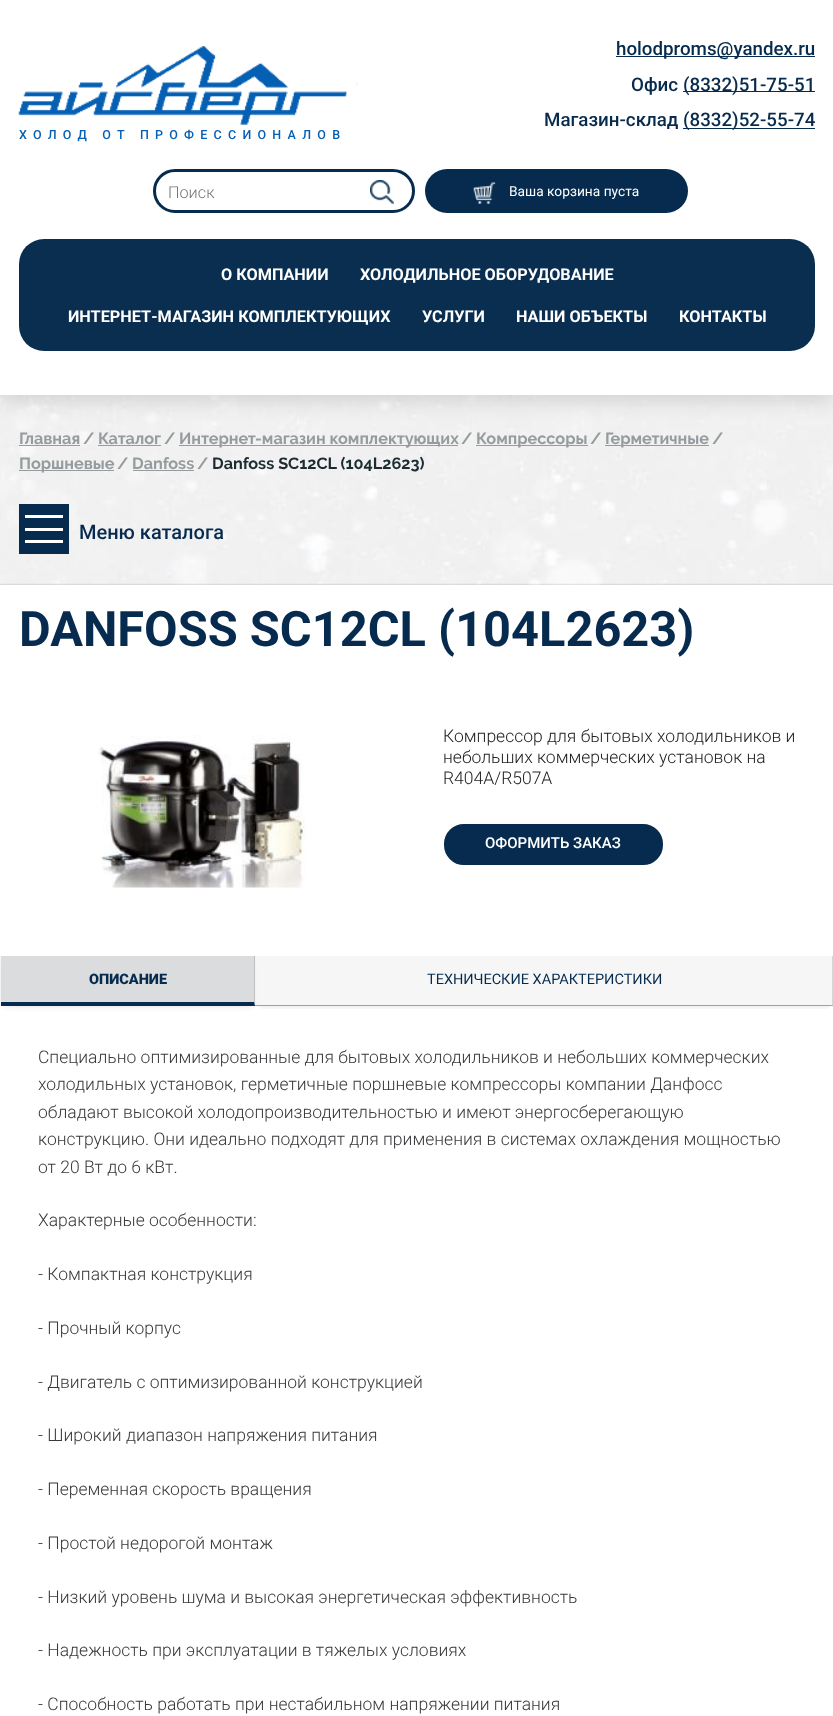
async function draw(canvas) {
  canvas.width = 833;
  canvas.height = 1716;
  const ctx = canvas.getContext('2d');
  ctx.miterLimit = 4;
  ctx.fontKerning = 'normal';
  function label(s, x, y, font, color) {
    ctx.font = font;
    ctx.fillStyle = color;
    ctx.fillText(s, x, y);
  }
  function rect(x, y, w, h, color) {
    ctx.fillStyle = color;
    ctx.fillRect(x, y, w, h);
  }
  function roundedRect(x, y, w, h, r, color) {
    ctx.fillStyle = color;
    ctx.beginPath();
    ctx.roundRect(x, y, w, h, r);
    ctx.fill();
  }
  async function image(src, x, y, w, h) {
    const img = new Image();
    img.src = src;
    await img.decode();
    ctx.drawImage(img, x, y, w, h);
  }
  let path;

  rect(0, 0, 833, 1716, '#fff');
  await image('assets/img1.png', 0, 395, 833, 190);
  ctx.fillStyle = '#00000026';
  ctx.filter = 'blur(11px)';
  ctx.beginPath();
  ctx.rect(0, 4, 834, 395);
  ctx.fill();
  ctx.filter = 'none';
  rect(0, 0, 833, 395, '#fff');
  rect(616, 56, 199, 1, '#062b4e');
  label('holodproms@yandex.ru', 616, 55, '500 18.75px Roboto', '#062b4e');
  label('Офис', 631, 91, '500 18.75px Roboto', '#062b4e');
  rect(683, 91, 132, 1, '#062b4e');
  label('(8332)51-75-51', 683, 91, '500 18.75px Roboto', '#062b4e');
  label('Магазин-склад', 544, 126, '500 18.75px Roboto', '#062b4e');
  rect(683, 128, 132, 1, '#062b4e');
  label('(8332)52-55-74', 683, 126, '500 18.75px Roboto', '#062b4e');
  ctx.beginPath();
  ctx.roundRect(154.5, 170.5, 259, 41, 20.5);
  ctx.strokeStyle = '#062b4e';
  ctx.lineWidth = 3;
  ctx.stroke();
  label('Поиск', 168, 198, '300 16.25px Roboto', '#757575');
  await image('assets/img2.png', 370, 180, 24, 24);
  roundedRect(425, 169, 263, 44, 22, '#062b4e');
  await image('assets/img3.png', 473, 182, 23, 22);
  label('Ваша корзина пуста', 509, 196, '13.75px Roboto', '#fff');
  await image('assets/img4.png', 18, 46, 340, 79);
  ctx.letterSpacing = '6.25px';
  label('ХОЛОД ОТ ПРОФЕССИОНАЛОВ', 19, 139, '500 12.5px Roboto', '#055fb3');
  roundedRect(19, 239, 796, 112, 25, '#092e50');
  ctx.letterSpacing = '0px';
  label('О КОМПАНИИ', 221, 280, 'bold 16.25px Roboto', '#fff');
  label('ХОЛОДИЛЬНОЕ ОБОРУДОВАНИЕ', 360, 280, 'bold 16.25px Roboto', '#fff');
  label('ИНТЕРНЕТ-МАГАЗИН КОМПЛЕКТУЮЩИХ', 68, 322, 'bold 16.25px Roboto', '#fff');
  label('УСЛУГИ', 422, 322, 'bold 16.25px Roboto', '#fff');
  label('НАШИ ОБЪЕКТЫ', 516, 322, 'bold 16.25px Roboto', '#fff');
  label('КОНТАКТЫ', 679, 322, 'bold 16.25px Roboto', '#fff');
  label('Главная', 19, 444, 'bold 16.25px Raleway', '#959c9e');
  rect(19, 445, 61, 1, '#959c9e');
  label('/', 83, 444, 'bold 16.25px Raleway', '#959c9e');
  label('Каталог', 98, 444, 'bold 16.25px Raleway', '#959c9e');
  rect(98, 445, 63, 1, '#959c9e');
  label('/', 164, 444, 'bold 16.25px Raleway', '#959c9e');
  rect(179, 445, 279, 1, '#959c9e');
  label('Интернет-магазин комплектующих', 179, 444, 'bold 16.25px Raleway', '#959c9e');
  label('/', 461, 444, 'bold 16.25px Raleway', '#959c9e');
  rect(476, 445, 112, 1, '#959c9e');
  label('Компрессоры', 476, 444, 'bold 16.25px Raleway', '#959c9e');
  label('/', 590, 444, 'bold 16.25px Raleway', '#959c9e');
  rect(605, 445, 104, 1, '#959c9e');
  label('Герметичные', 605, 444, 'bold 16.25px Raleway', '#959c9e');
  label('/', 712, 444, 'bold 16.25px Raleway', '#959c9e');
  rect(19, 470, 95, 1, '#959c9e');
  label('Поршневые', 19, 469, 'bold 16.25px Raleway', '#959c9e');
  label('/', 117, 469, 'bold 16.25px Raleway', '#959c9e');
  label('Danfoss', 132, 469, 'bold 16.25px Raleway', '#959c9e');
  rect(133, 470, 61, 1, '#959c9e');
  label('/', 197, 469, 'bold 16.25px Raleway', '#959c9e');
  label('Danfoss SC12CL (104L2623)', 212, 469, 'bold 16.25px Raleway', '#1c2c32');
  rect(19, 504, 50, 50, '#062b4e');
  rect(25, 528, 38, 3, '#fff');
  rect(25, 515, 38, 3, '#fff');
  rect(25, 540, 38, 3, '#fff');
  label('Меню каталога', 79, 539, '500 20px Roboto', '#062b4e');
  ctx.fillStyle = '#00000045';
  ctx.filter = 'blur(1px)';
  ctx.beginPath();
  ctx.rect(0, 585, 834, 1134);
  ctx.fill();
  ctx.filter = 'none';
  rect(0, 585, 833, 1131, '#fff');
  label('DANFOSS SC12CL (104L2623)', 19, 646, 'bold 48.75px Roboto', '#062b4e');
  await image('assets/img5.png', 98, 735, 208, 153);
  label('Компрессор для бытовых холодильников и', 443, 742, '300 17.5px Roboto', '#222');
  label('небольших коммерческих установок на', 443, 763, '300 17.5px Roboto', '#222');
  label('R404A/R507A', 443, 784, '300 17.5px Roboto', '#222');
  ctx.fillStyle = '#062b4e';
  ctx.beginPath();
  ctx.roundRect(445.5, 825.5, 216, 38, 18.5);
  ctx.fill();
  ctx.stroke();
  label('ОФОРМИТЬ ЗАКАЗ', 485, 848, '500 15px Roboto', '#fff');
  rect(0, 956, 833, 50, '#f6f6f6');
  ctx.save();
  ctx.beginPath();
  ctx.rect(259, 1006, 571, 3);
  ctx.clip();
  ctx.fillStyle = '#00000021';
  ctx.filter = 'blur(3px)';
  ctx.beginPath();
  ctx.rect(259, 964, 571, 42);
  ctx.fill();
  ctx.filter = 'none';
  ctx.restore();
  ctx.fillStyle = '#d6d6d6';
  path = new Path2D('M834 956V1006L832 1005V956Z');
  ctx.fill(path);
  ctx.fillStyle = '#97a4b0';
  path = new Path2D('M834 1006H255V1005H832Z');
  ctx.fill(path);
  ctx.fillStyle = '#00000021';
  ctx.filter = 'blur(3px)';
  ctx.beginPath();
  ctx.rect(5, 964, 246, 42);
  ctx.fill();
  ctx.filter = 'none';
  rect(1, 956, 254, 50, '#dadcde');
  ctx.fillStyle = '#bebfc1';
  path = new Path2D('M255 956V1006L254 1002V956Z');
  ctx.fill(path);
  ctx.fillStyle = '#062b4e';
  path = new Path2D('M255 1006H1V1002H254Z');
  ctx.fill(path);
  label('ОПИСАНИЕ', 89, 984, '900 14.5px Roboto', '#062b4e');
  label('ТЕХНИЧЕСКИЕ ХАРАКТЕРИСТИКИ', 427, 984, '14.5px Roboto', '#062b4e');
  label('Специально оптимизированные для бытовых холодильников и небольших коммерческих', 38, 1063, '300 17.5px Roboto', '#38393c');
  label('холодильных установок, герметичные поршневые компрессоры компании Данфосс', 38, 1090, '300 17.5px Roboto', '#38393c');
  label('обладают высокой холодопроизводительностью и имеют энергосберегающую', 38, 1118, '300 17.5px Roboto', '#38393c');
  label('конструкцию. Они идеально подходят для применения в системах охлаждения мощностью', 38, 1145, '300 17.5px Roboto', '#38393c');
  label('от 20 Вт до 6 кВт.', 38, 1173, '300 17.5px Roboto', '#38393c');
  label('Характерные особенности:', 38, 1226, '300 17.5px Roboto', '#38393c');
  label('- Компактная конструкция', 38, 1280, '300 17.5px Roboto', '#38393c');
  label('- Прочный корпус', 38, 1334, '300 17.5px Roboto', '#38393c');
  label('- Двигатель с оптимизированной конструкцией', 38, 1388, '300 17.5px Roboto', '#38393c');
  label('- Широкий диапазон напряжения питания', 38, 1441, '300 17.5px Roboto', '#38393c');
  label('- Переменная скорость вращения', 38, 1495, '300 17.5px Roboto', '#38393c');
  label('- Простой недорогой монтаж', 38, 1549, '300 17.5px Roboto', '#38393c');
  label('- Низкий уровень шума и высокая энергетическая эффективность', 38, 1603, '300 17.5px Roboto', '#38393c');
  label('- Надежность при эксплуатации в тяжелых условиях', 38, 1656, '300 17.5px Roboto', '#38393c');
  label('- Способность работать при нестабильном напряжении питания', 38, 1710, '300 17.5px Roboto', '#38393c');
}

draw(document.querySelector('canvas'));
